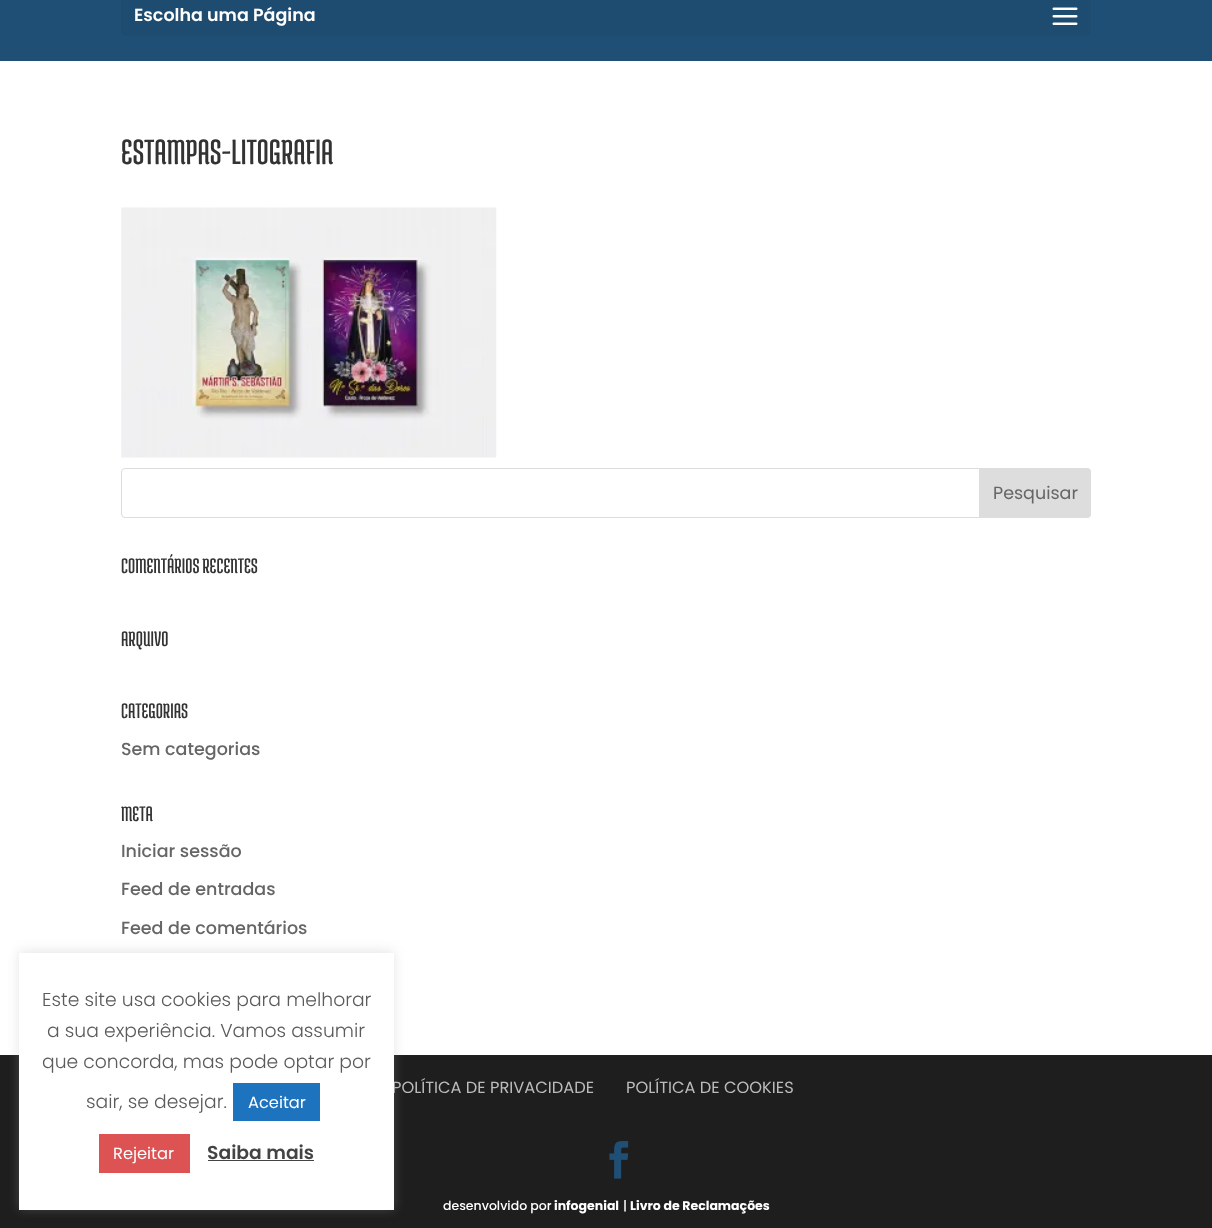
async function draw(canvas) {
  canvas.width = 1212;
  canvas.height = 1228;
  const ctx = canvas.getContext('2d');
  ctx.miterLimit = 4;
  ctx.fontKerning = 'normal';
  function label(s, x, y, font, color) {
    ctx.font = font;
    ctx.fillStyle = color;
    ctx.fillText(s, x, y);
  }
  function rect(x, y, w, h, color) {
    ctx.fillStyle = color;
    ctx.fillRect(x, y, w, h);
  }
  function roundedRect(x, y, w, h, r, color) {
    ctx.fillStyle = color;
    ctx.beginPath();
    ctx.roundRect(x, y, w, h, r);
    ctx.fill();
  }
  async function image(src, x, y, w, h) {
    const img = new Image();
    img.src = src;
    await img.decode();
    ctx.drawImage(img, x, y, w, h);
  }

  rect(0, 0, 1212, 1228, '#fff');
  rect(0, 0, 1212, 61, '#204f76');
  roundedRect(121, -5, 970, 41, 6, '#1e4b70');
  label('Escolha uma Página', 134, 21, '600 17.5px Poppins', '#fff');
  await image('assets/img1.png', 1052, 7, 26, 18);
  label('ESTAMPAS-LITOGRAFIA', 121, 164, '37.5px Medula One', '#333');
  await image('assets/img2.png', 121, 207, 376, 251);
  ctx.beginPath();
  ctx.roundRect(121.5, 468.5, 969, 49, 3.5);
  ctx.strokeStyle = '#ddd';
  ctx.stroke();
  ctx.fillStyle = '#ddd';
  ctx.beginPath();
  ctx.roundRect(979.5, 468.5, 111, 49, [0, 3.5, 3.5, 0]);
  ctx.fill();
  ctx.stroke();
  label('Pesquisar', 993, 499, '17.5px Poppins', '#666');
  label('COMENTÁRIOS RECENTES', 121, 573, '22.5px Medula One', '#333');
  label('ARQUIVO', 121, 646, '22.5px Medula One', '#333');
  label('CATEGORIAS', 121, 718, '22.5px Medula One', '#333');
  label('Sem categorias', 121, 755, '500 17.5px Poppins', '#666');
  label('META', 121, 821, '22.5px Medula One', '#333');
  label('Iniciar sessão', 121, 857, '500 17.5px Poppins', '#666');
  label('Feed de entradas', 121, 895, '500 17.5px Poppins', '#666');
  label('Feed de comentários', 121, 934, '500 17.5px Poppins', '#666');
  rect(0, 1055, 1212, 173, '#1e1e1e');
  label('POLÍTICA DE PRIVACIDADE', 392, 1093, '16.25px Poppins', '#bbb');
  label('POLÍTICA DE COOKIES', 626, 1093, '16.25px Poppins', '#bbb');
  await image('assets/img3.png', 609, 1141, 20, 38);
  label('desenvolvido por', 443, 1210, '500 12.5px Poppins', '#fff');
  label('infogenial', 554, 1210, 'bold 12.5px Poppins', '#fff');
  label('|', 623, 1210, '500 12.5px Poppins', '#fff');
  label('Livro de Reclamações', 630, 1210, 'bold 12.5px Poppins', '#fff');
  ctx.fillStyle = '#acabab4d';
  ctx.filter = 'blur(6px)';
  ctx.beginPath();
  ctx.rect(19, 951, 375, 258);
  ctx.fill();
  ctx.filter = 'none';
  rect(19, 953, 375, 257, '#fff');
  label('Este site usa cookies para melhorar', 42, 1006, '300 18.75px Poppins', '#5b5b5b');
  label('a sua experiência. Vamos assumir', 47, 1037, '300 18.75px Poppins', '#5b5b5b');
  label('que concorda, mas pode optar por', 42, 1068, '300 18.75px Poppins', '#5b5b5b');
  label('sair, se desejar.', 86, 1108, '300 18.75px Poppins', '#5b5b5b');
  rect(233, 1083, 87, 38, '#1e73be');
  label('Aceitar', 248, 1108, '16.25px Poppins', '#fff');
  rect(99, 1134, 91, 39, '#dd5252');
  label('Rejeitar', 113, 1159, '16.25px Poppins', '#fff');
  label('Saiba mais', 207, 1159, '600 18.75px Poppins', '#444');
  rect(208, 1160, 106, 1, '#444');
}

draw(document.querySelector('canvas'));
